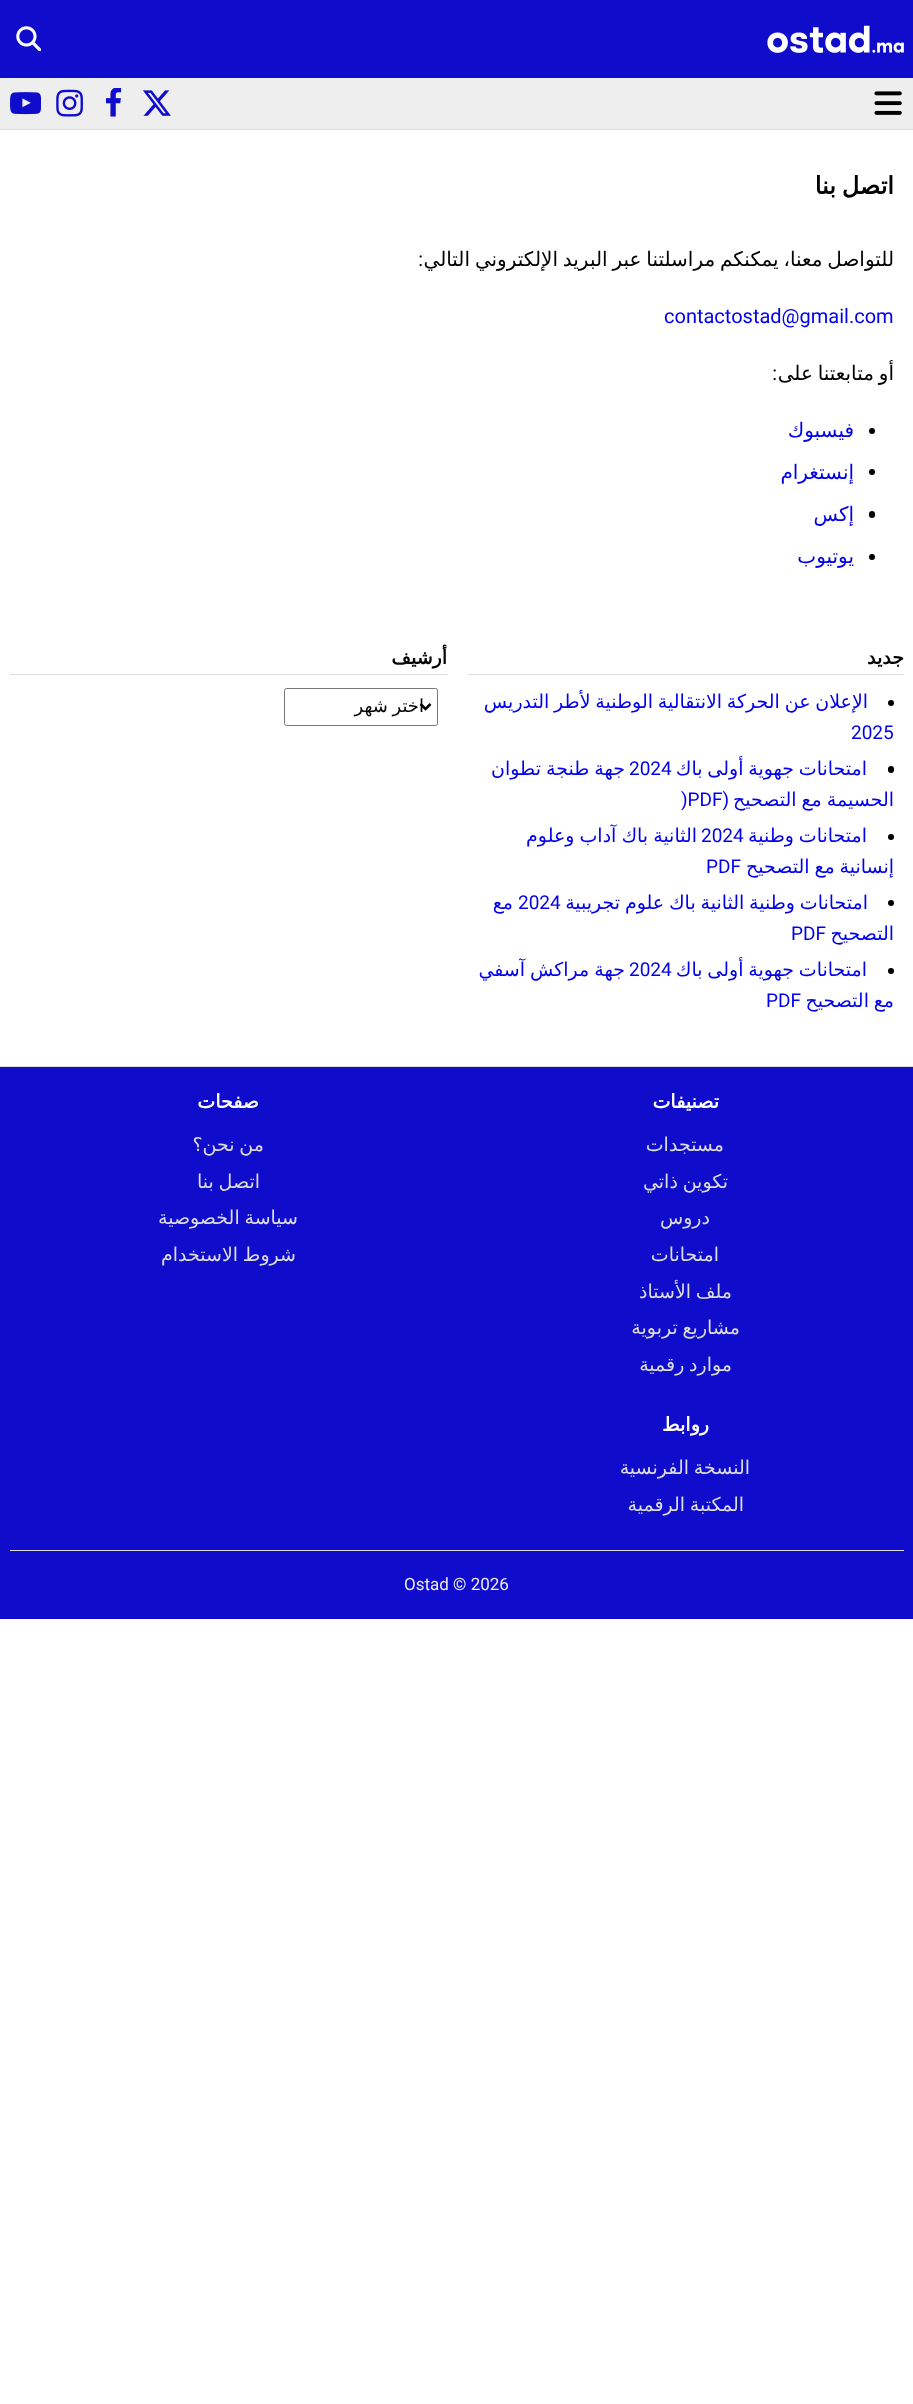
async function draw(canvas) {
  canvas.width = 913;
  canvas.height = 2404;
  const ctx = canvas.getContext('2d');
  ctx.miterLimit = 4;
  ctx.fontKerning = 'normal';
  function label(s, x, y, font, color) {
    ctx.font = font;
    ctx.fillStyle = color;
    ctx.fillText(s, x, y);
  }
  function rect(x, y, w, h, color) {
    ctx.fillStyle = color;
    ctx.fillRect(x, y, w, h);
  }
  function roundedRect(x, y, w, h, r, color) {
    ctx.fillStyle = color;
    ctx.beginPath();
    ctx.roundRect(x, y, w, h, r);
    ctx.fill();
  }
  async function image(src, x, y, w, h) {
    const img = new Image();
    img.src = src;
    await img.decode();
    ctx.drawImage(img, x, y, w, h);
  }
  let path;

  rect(0, 0, 913, 2404, '#fff');
  rect(0, 0, 913, 78, '#0f0ccc');
  await image('assets/img1.png', 767, 25, 137, 28);
  await image('assets/img2.png', 16, 26, 25, 25);
  rect(0, 78, 913, 51, '#eee');
  rect(0, 129, 913, 1, '#ddd');
  await image('assets/img3.png', 874, 91, 28, 24);
  await image('assets/img4.png', 143, 90, 28, 26);
  await image('assets/img5.png', 106, 88, 16, 29);
  await image('assets/img6.png', 56, 89, 27, 28);
  await image('assets/img7.png', 10, 92, 31, 23);
  ctx.wordSpacing = '-2px';
  ctx.direction = 'rtl';
  label('اتصل بنا', 894, 194, 'bold 24px DejaVu Sans', '#000');
  ctx.wordSpacing = '-1.5px';
  label('للتواصل معنا، يمكنكم مراسلتنا عبر البريد الإلكتروني التالي', 894, 266, '20px DejaVu Sans', '#000');
  ctx.wordSpacing = '0px';
  label(':', 423, 266, '20px Roboto', '#000');
  ctx.direction = 'ltr';
  label('contactostad@gmail.com', 664, 323, '20px Roboto', '#00e');
  ctx.wordSpacing = '-1.5px';
  ctx.direction = 'rtl';
  label('أو متابعتنا على', 894, 380, '20px DejaVu Sans', '#000');
  ctx.wordSpacing = '0px';
  label(':', 777, 380, '20px Roboto', '#000');
  ctx.beginPath();
  ctx.arc(872, 431, 3, 0, 2 * Math.PI);
  ctx.fill();
  label('فيسبوك', 854, 437, '20px DejaVu Sans', '#00e');
  ctx.fillStyle = '#000';
  ctx.beginPath();
  ctx.arc(872, 472, 3, 0, 2 * Math.PI);
  ctx.fill();
  label('إنستغرام', 854, 479, '20px DejaVu Sans', '#00e');
  roundedRect(869, 511, 6, 7, 3, '#000');
  label('إكس', 854, 521, '20px DejaVu Sans', '#00e');
  ctx.fillStyle = '#000';
  ctx.beginPath();
  ctx.arc(872, 557, 3, 0, 2 * Math.PI);
  ctx.fill();
  label('يوتيوب', 854, 563, '20px DejaVu Sans', '#00e');
  rect(468, 674, 436, 1, '#ddd');
  label('جديد', 904, 664, 'bold 19px DejaVu Sans', '#000');
  ctx.beginPath();
  ctx.arc(891, 703, 3, 0, 2 * Math.PI);
  ctx.fill();
  ctx.wordSpacing = '-1.25px';
  label('الإعلان عن الحركة الانتقالية الوطنية لأطر التدريس', 868, 708, '19px DejaVu Sans', '#00e');
  ctx.wordSpacing = '0px';
  ctx.direction = 'ltr';
  label('2025', 851, 739, '19px Roboto', '#00e');
  roundedRect(888, 766, 6, 7, 3, '#000');
  ctx.wordSpacing = '-1.25px';
  ctx.direction = 'rtl';
  label('امتحانات جهوية أولى باك', 867, 775, '19px DejaVu Sans', '#00e');
  ctx.wordSpacing = '0px';
  ctx.direction = 'ltr';
  label('2024', 629, 775, '19px Roboto', '#00e');
  ctx.wordSpacing = '-1px';
  ctx.direction = 'rtl';
  label('جهة طنجة تطوان', 625, 775, '19px DejaVu Sans', '#00e');
  label('الحسيمة مع التصحيح', 894, 806, '19px DejaVu Sans', '#00e');
  ctx.wordSpacing = '0px';
  label('(', 729, 806, '19px Roboto', '#00e');
  ctx.direction = 'ltr';
  label(')PDF', 681, 806, '19px Roboto', '#00e');
  ctx.fillStyle = '#000';
  ctx.beginPath();
  ctx.arc(891, 837, 3, 0, 2 * Math.PI);
  ctx.fill();
  ctx.wordSpacing = '-1.25px';
  ctx.direction = 'rtl';
  label('امتحانات وطنية', 867, 842, '19px DejaVu Sans', '#00e');
  ctx.wordSpacing = '0px';
  ctx.direction = 'ltr';
  label('2024', 701, 842, '19px Roboto', '#00e');
  ctx.wordSpacing = '-1px';
  ctx.direction = 'rtl';
  label('الثانية باك آداب وعلوم', 697, 842, '19px DejaVu Sans', '#00e');
  ctx.wordSpacing = '-1.25px';
  label('إنسانية مع التصحيح', 894, 873, '19px DejaVu Sans', '#00e');
  ctx.wordSpacing = '0px';
  ctx.direction = 'ltr';
  label('PDF', 706, 873, '19px Roboto', '#00e');
  ctx.fillStyle = '#000';
  ctx.beginPath();
  ctx.arc(891, 903, 3, 0, 2 * Math.PI);
  ctx.fill();
  ctx.wordSpacing = '-1.25px';
  ctx.direction = 'rtl';
  label('امتحانات وطنية الثانية باك علوم تجريبية', 868, 909, '19px DejaVu Sans', '#00e');
  ctx.wordSpacing = '0px';
  ctx.direction = 'ltr';
  label('2024', 518, 909, '19px Roboto', '#00e');
  ctx.direction = 'rtl';
  label('مع', 513, 909, '19px DejaVu Sans', '#00e');
  label('التصحيح', 894, 940, '19px DejaVu Sans', '#00e');
  ctx.direction = 'ltr';
  label('PDF', 791, 940, '19px Roboto', '#00e');
  ctx.fillStyle = '#000';
  ctx.beginPath();
  ctx.arc(891, 971, 3, 0, 2 * Math.PI);
  ctx.fill();
  ctx.wordSpacing = '-1.25px';
  ctx.direction = 'rtl';
  label('امتحانات جهوية أولى باك', 867, 976, '19px DejaVu Sans', '#00e');
  ctx.wordSpacing = '0px';
  ctx.direction = 'ltr';
  label('2024', 629, 976, '19px Roboto', '#00e');
  ctx.wordSpacing = '-1px';
  ctx.direction = 'rtl';
  label('جهة مراكش آسفي', 625, 976, '19px DejaVu Sans', '#00e');
  ctx.wordSpacing = '-1.25px';
  label('مع التصحيح', 894, 1007, '19px DejaVu Sans', '#00e');
  ctx.wordSpacing = '0px';
  ctx.direction = 'ltr';
  label('PDF', 766, 1007, '19px Roboto', '#00e');
  rect(10, 674, 438, 1, '#ddd');
  ctx.direction = 'rtl';
  label('أرشيف', 447, 664, 'bold 19px DejaVu Sans', '#000');
  ctx.beginPath();
  ctx.roundRect(284.5, 688.5, 153, 37, 2);
  ctx.strokeStyle = '#767676';
  ctx.stroke();
  path = new Path2D('M420.5 704L425.5 709L430.5 704');
  ctx.strokeStyle = '#000';
  ctx.lineWidth = 2.5;
  ctx.stroke(path);
  ctx.wordSpacing = '-1px';
  label('اختر شهر', 424, 712, '18px DejaVu Sans', '#000');
  rect(0, 1067, 913, 552, '#0f0ccc');
  rect(0, 1066, 913, 1, '#ddd');
  ctx.wordSpacing = '0px';
  label('تصنيفات', 719, 1108, 'bold 19px DejaVu Sans', '#fff');
  label('مستجدات', 724, 1151, '19px DejaVu Sans', '#ddd');
  ctx.wordSpacing = '-1.25px';
  label('تكوين ذاتي', 728, 1188, '19px DejaVu Sans', '#ddd');
  ctx.wordSpacing = '0px';
  label('دروس', 710, 1224, '19px DejaVu Sans', '#ddd');
  label('امتحانات', 719, 1261, '19px DejaVu Sans', '#ddd');
  ctx.wordSpacing = '-1.25px';
  label('ملف الأستاذ', 732, 1298, '19px DejaVu Sans', '#ddd');
  label('مشاريع تربوية', 740, 1334, '19px DejaVu Sans', '#ddd');
  label('موارد رقمية', 732, 1371, '19px DejaVu Sans', '#ddd');
  ctx.wordSpacing = '0px';
  label('صفحات', 259, 1108, 'bold 19px DejaVu Sans', '#fff');
  ctx.wordSpacing = '-1.25px';
  label('من نحن؟', 264, 1151, '19px DejaVu Sans', '#ddd');
  label('اتصل بنا', 260, 1188, '19px DejaVu Sans', '#ddd');
  label('سياسة الخصوصية', 298, 1224, '19px DejaVu Sans', '#ddd');
  label('شروط الاستخدام', 296, 1261, '19px DejaVu Sans', '#ddd');
  ctx.wordSpacing = '0px';
  label('روابط', 709, 1431, 'bold 19px DejaVu Sans', '#fff');
  ctx.wordSpacing = '-1.25px';
  label('النسخة الفرنسية', 750, 1474, '19px DejaVu Sans', '#ddd');
  label('المكتبة الرقمية', 744, 1511, '19px DejaVu Sans', '#ddd');
  rect(10, 1550, 894, 1, '#ddd');
  ctx.wordSpacing = '0px';
  ctx.direction = 'ltr';
  label('Ostad © 2026', 404, 1590, '17px Roboto', '#eee');
}

draw(document.querySelector('canvas'));
